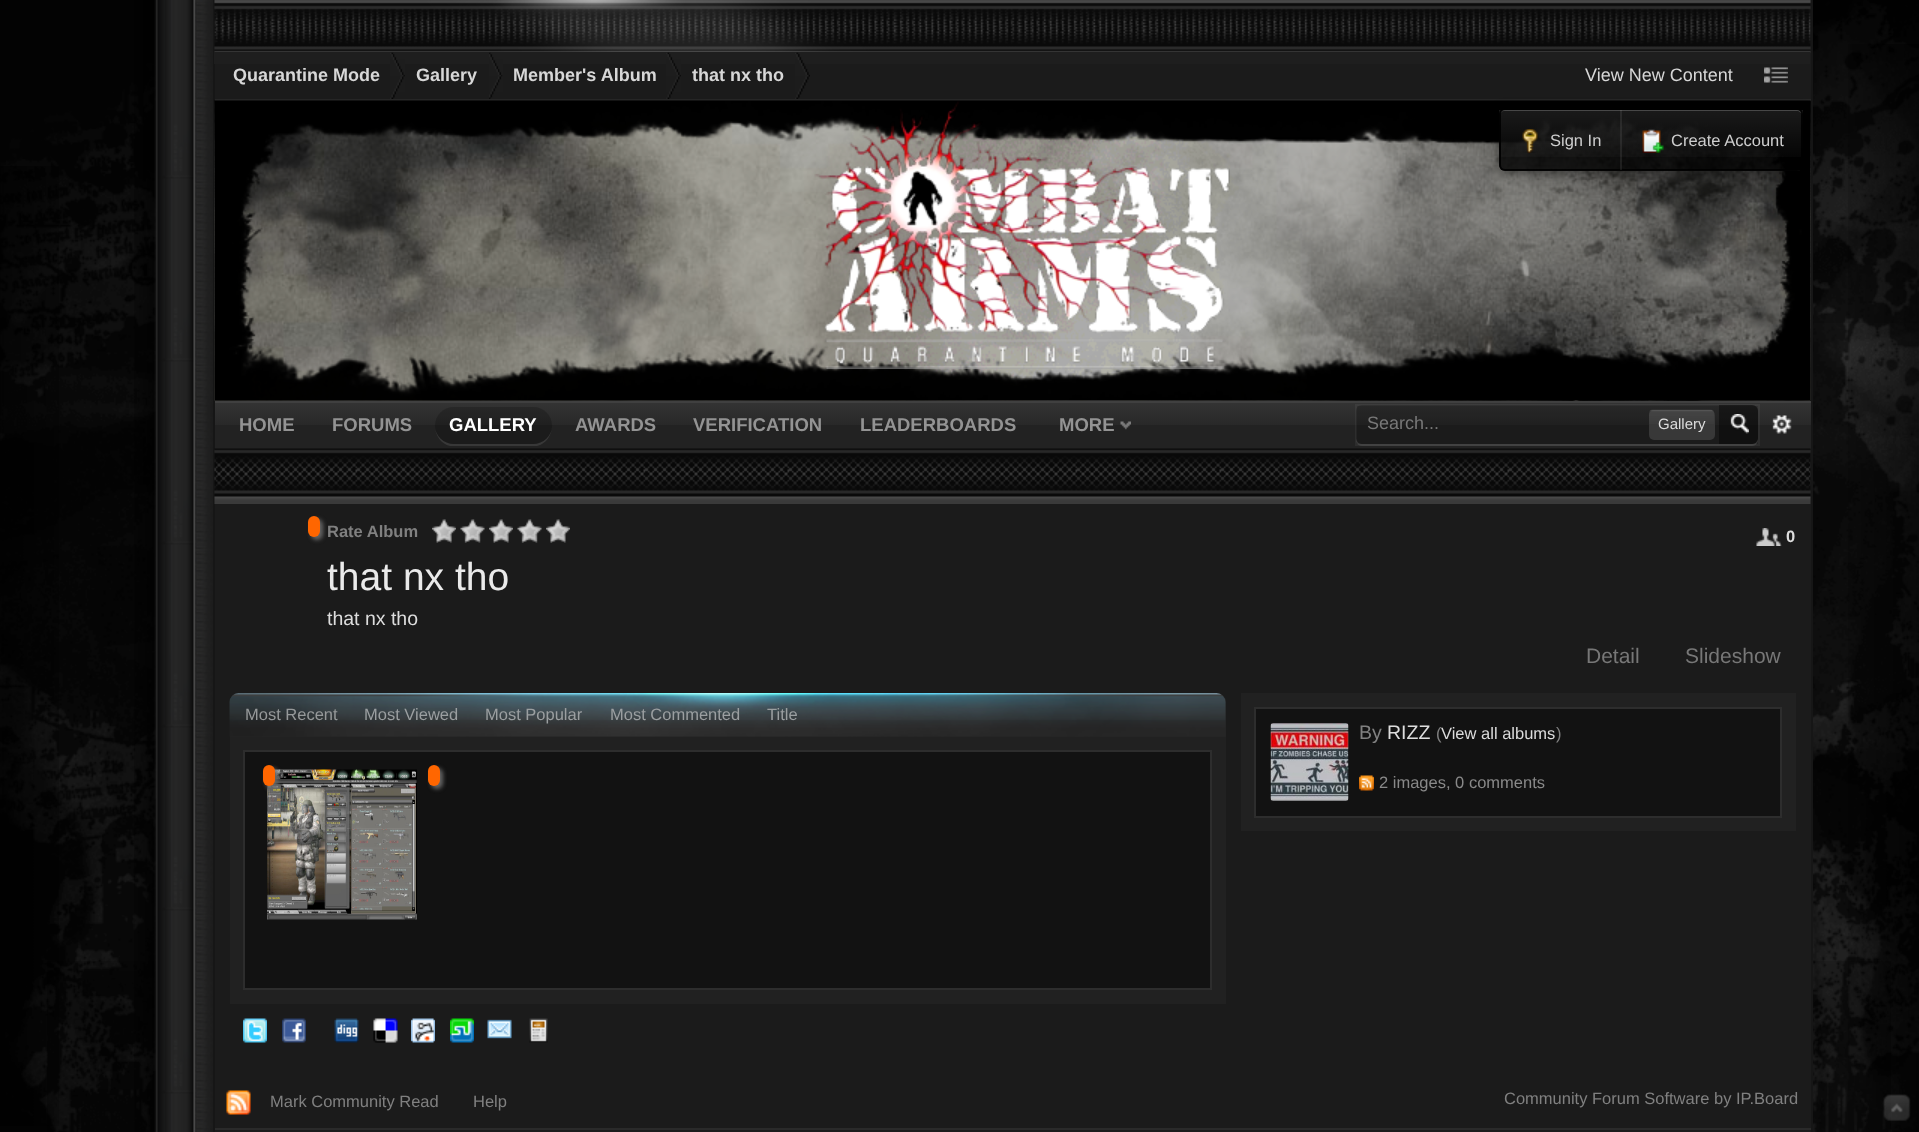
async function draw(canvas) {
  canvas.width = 1919;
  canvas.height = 1132;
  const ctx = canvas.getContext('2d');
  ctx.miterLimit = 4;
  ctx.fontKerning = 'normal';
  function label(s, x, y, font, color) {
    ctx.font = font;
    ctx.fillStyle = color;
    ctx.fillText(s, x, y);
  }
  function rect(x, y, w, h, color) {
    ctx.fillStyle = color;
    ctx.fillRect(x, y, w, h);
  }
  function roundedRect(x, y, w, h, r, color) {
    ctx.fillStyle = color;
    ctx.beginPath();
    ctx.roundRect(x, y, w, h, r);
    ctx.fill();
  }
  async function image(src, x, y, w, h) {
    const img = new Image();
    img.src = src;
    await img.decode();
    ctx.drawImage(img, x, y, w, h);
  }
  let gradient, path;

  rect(0, 0, 1919, 1132, '#fff');
  await image('assets/img1.png', 0, 0, 1919, 1132);
  await image('assets/img2.png', 1813, 0, 106, 323);
  await image('assets/img3.png', 0, 166, 59, 960);
  await image('assets/img4.png', 1848, 44, 71, 1088);
  await image('assets/img5.png', 47, 961, 1844, 171);
  await image('assets/img6.png', 134, 0, 79, 1132);
  rect(215, 0, 1596, 1132, '#1b1b1b');
  rect(1811, 0, 2, 1132, '#161616');
  rect(213, 0, 2, 1132, '#161616');
  await image('assets/img7.png', 214, 0, 1597, 53);
  rect(214, 52, 1596, 12, '#1e1e1e');
  rect(215, 101, 1596, 300, '#000');
  await image('assets/img16.png', 214, 100, 1597, 301);
  await image('assets/img17.png', 214, 100, 1597, 301);
  rect(215, 99, 1596, 2, '#262626');
  await image('assets/img8.png', 390, 52, 15, 47);
  label('Quarantine Mode', 233, 81, 'bold 18px Liberation Sans', '#d7d7d7');
  await image('assets/img9.png', 393, 53, 12, 42);
  await image('assets/img10.png', 489, 52, 14, 47);
  label('Gallery', 416, 81, 'bold 18px Liberation Sans', '#d7d7d7');
  await image('assets/img11.png', 490, 53, 13, 46);
  await image('assets/img12.png', 666, 52, 15, 47);
  label('Member\'s Album', 513, 81, 'bold 18px Liberation Sans', '#d7d7d7');
  await image('assets/img13.png', 669, 53, 12, 44);
  await image('assets/img14.png', 795, 52, 15, 47);
  label('that nx tho', 692, 81, 'bold 18px Liberation Sans', '#d7d7d7');
  label('View New Content', 1585, 81, '18px Liberation Sans', '#d7d7d7');
  await image('assets/img15.png', 1764, 67, 24, 16);
  await image('assets/img18.png', 214, 100, 1597, 301);
  await image('assets/img19.png', 814, 101, 416, 268);
  ctx.save();
  path = new Path2D('M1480 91H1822V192H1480ZM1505 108H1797C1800.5 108 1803 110.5 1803 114V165C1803 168.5 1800.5 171 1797 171H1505C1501.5 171 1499 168.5 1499 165V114C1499 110.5 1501.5 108 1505 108Z');
  ctx.clip(path, 'evenodd');
  ctx.fillStyle = '#00000073';
  ctx.filter = 'blur(6px)';
  ctx.beginPath();
  ctx.roundRect(1499, 110, 304, 63, 6);
  ctx.fill();
  ctx.filter = 'none';
  ctx.restore();
  roundedRect(1499, 108, 304, 63, 6, '#000000cc');
  gradient = ctx.createLinearGradient(1500, 110, 1500, 170);
  gradient.addColorStop(0, '#ffffff1a');
  gradient.addColorStop(1, '#ffffff00');
  ctx.fillStyle = gradient;
  ctx.fillRect(1499, 110, 304, 47);
  ctx.save();
  ctx.beginPath();
  ctx.roundRect(1499, 108, 304, 63, 6);
  ctx.clip();
  gradient = ctx.createLinearGradient(1500, 170, 1500, 230);
  gradient.addColorStop(0, '#ffffff1a');
  gradient.addColorStop(1, '#ffffff00');
  ctx.fillStyle = gradient;
  ctx.fillRect(1499, 170, 304, 1);
  ctx.restore();
  ctx.fillStyle = '#474747';
  path = new Path2D('M1504 111H1797C1799 111 1802 113 1802 116V115C1802 112 1800 110 1797 110H1505C1502 110 1500 112 1500 115V116C1500 113 1502 111 1504 111Z');
  ctx.fill(path);
  ctx.beginPath();
  ctx.roundRect(1500, 109, 302, 61, 5);
  ctx.strokeStyle = '#000000e6';
  ctx.lineWidth = 2;
  ctx.stroke();
  rect(1620, 110, 2, 60, '#ffffff14');
  await image('assets/img20.png', 1522, 129, 16, 24);
  label('Sign In', 1550, 146, '16.5px Liberation Sans', '#cecece');
  await image('assets/img21.png', 1642, 129, 22, 24);
  label('Create Account', 1671, 146, '16.5px Liberation Sans', '#cecece');
  gradient = ctx.createLinearGradient(215, 402, 215, 449);
  gradient.addColorStop(0, '#343434');
  gradient.addColorStop(0.5, '#282828');
  gradient.addColorStop(0.5, '#222');
  gradient.addColorStop(1, '#222');
  ctx.fillStyle = gradient;
  ctx.fillRect(215, 403, 1596, 46);
  rect(215, 401, 1596, 2, '#404040');
  label('HOME', 239, 431, 'bold 18.5px Liberation Sans', '#939393');
  label('FORUMS', 332, 431, 'bold 18.5px Liberation Sans', '#939393');
  ctx.fillStyle = '#383838';
  path = new Path2D('M435 426C435 435 441 444 450 446H467H537C546 444 552 435 552 426C552 436 543 444 533 444H454C444 444 435 436 435 426Z');
  ctx.fill(path);
  roundedRect(435, 407, 117, 37, 18.5, '#00000033');
  label('GALLERY', 449, 431, 'bold 18.5px Liberation Sans', '#fff');
  label('AWARDS', 575, 431, 'bold 18.5px Liberation Sans', '#939393');
  label('VERIFICATION', 693, 431, 'bold 18.5px Liberation Sans', '#939393');
  label('LEADERBOARDS', 860, 431, 'bold 18.5px Liberation Sans', '#939393');
  label('MORE', 1059, 431, 'bold 18.5px Liberation Sans', '#939393');
  await image('assets/img22.png', 1120, 421, 11, 9);
  ctx.strokeStyle = '#ffffff0d';
  ctx.strokeRect(1356, 405, 403, 40);
  ctx.fillStyle = '#ffffff1a';
  path = new Path2D('M1356 438C1356 442 1357 446 1362 446H1752C1757 446 1758 442 1758 438C1758 441 1755 444 1752 444H1362C1359 444 1356 441 1356 438Z');
  ctx.fill(path);
  roundedRect(1356, 405, 402, 39, 6, '#00000033');
  label('Search...', 1367, 429, '18px Liberation Sans', '#777');
  roundedRect(1649, 410, 66, 30, 5, '#383838');
  await image('assets/img23.png', 1649, 409, 65, 15);
  label('Gallery', 1658, 429, '15px Liberation Sans', '#ddd');
  ctx.fillStyle = '#00000066';
  ctx.beginPath();
  ctx.roundRect(1719, 405, 39, 39, [0, 6, 6, 0]);
  ctx.fill();
  await image('assets/img24.png', 1730, 414, 19, 20);
  await image('assets/img25.png', 1772, 415, 20, 19);
  await image('assets/img26.png', 214, 448, 1597, 56);
  ctx.fillStyle = '#666';
  ctx.filter = 'blur(2px)';
  ctx.beginPath();
  ctx.roundRect(311, 519, 12, 21, 6);
  ctx.fill();
  ctx.filter = 'none';
  roundedRect(308, 516, 12, 21, 6, '#f60');
  label('Rate Album', 327, 537, 'bold 16.5px Liberation Sans', '#808080');
  await image('assets/img27.png', 432, 519, 24, 24);
  await image('assets/img28.png', 460, 519, 25, 24);
  await image('assets/img29.png', 489, 519, 24, 24);
  await image('assets/img30.png', 517, 519, 25, 24);
  await image('assets/img31.png', 546, 519, 24, 24);
  label('that nx tho', 327, 590, '39px Liberation Sans', '#eaeaea');
  label('that nx tho', 327, 625, '19.5px Liberation Sans', '#ddd');
  await image('assets/img32.png', 1756, 528, 26, 18);
  label('0', 1786, 542, 'bold 16.5px Liberation Sans', '#ddd');
  label('Detail', 1586, 663, '21px Liberation Sans', '#777');
  label('Slideshow', 1685, 663, '21px Liberation Sans', '#777');
  ctx.fillStyle = '#252525';
  ctx.beginPath();
  ctx.roundRect(230, 693, 996, 44, [9, 9, 0, 0]);
  ctx.fill();
  await image('assets/img33.png', 229, 693, 997, 44);
  label('Most Recent', 245, 720, '16.5px Liberation Sans', '#96999a');
  label('Most Viewed', 364, 720, '16.5px Liberation Sans', '#9b9fa1');
  label('Most Popular', 485, 720, '16.5px Liberation Sans', '#9b9fa1');
  label('Most Commented', 610, 720, '16.5px Liberation Sans', '#9b9fa1');
  label('Title', 767, 720, '16.5px Liberation Sans', '#9b9fa1');
  rect(230, 737, 996, 267, '#212121');
  ctx.fillStyle = '#121212';
  ctx.beginPath();
  ctx.rect(244, 751, 967, 238);
  ctx.fill();
  ctx.strokeStyle = '#2d2d2d';
  ctx.stroke();
  await image('assets/img34.png', 267, 769, 150, 151);
  ctx.fillStyle = '#666';
  ctx.filter = 'blur(2px)';
  ctx.beginPath();
  ctx.roundRect(266, 768, 12, 21, 6);
  ctx.fill();
  ctx.filter = 'none';
  roundedRect(263, 765, 12, 21, 6, '#f60');
  ctx.fillStyle = '#666';
  ctx.filter = 'blur(2px)';
  ctx.beginPath();
  ctx.roundRect(431, 768, 12, 21, 6);
  ctx.fill();
  ctx.filter = 'none';
  roundedRect(428, 765, 12, 21, 6, '#f60');
  rect(1241, 693, 555, 138, '#212121');
  ctx.fillStyle = '#121212';
  ctx.beginPath();
  ctx.rect(1255, 708, 526, 109);
  ctx.fill();
  ctx.stroke();
  await image('assets/img35.png', 1270, 723, 79, 78);
  label('By', 1359, 739, '19.5px Liberation Sans', '#808080');
  label('RIZZ', 1387, 739, '19.5px Liberation Sans', '#ddd');
  label('(', 1436, 739, '16.5px Liberation Sans', '#808080');
  label('View all albums', 1441, 739, '16.5px Liberation Sans', '#ddd');
  label(')', 1556, 739, '16.5px Liberation Sans', '#808080');
  await image('assets/img36.png', 1359, 775, 15, 16);
  label('2 images, 0 comments', 1379, 788, '16.5px Liberation Sans', '#898989');
  await image('assets/img37.png', 243, 1018, 24, 25);
  await image('assets/img38.png', 282, 1018, 24, 25);
  await image('assets/img39.png', 334, 1018, 25, 25);
  await image('assets/img40.png', 373, 1018, 25, 25);
  await image('assets/img41.png', 411, 1018, 24, 25);
  await image('assets/img42.png', 450, 1018, 24, 25);
  await image('assets/img43.png', 487, 1019, 25, 20);
  await image('assets/img44.png', 529, 1018, 19, 25);
  await image('assets/img45.png', 226, 1090, 25, 25);
  label('Mark Community Read', 270, 1107, '16.5px Liberation Sans', '#808080');
  label('Help', 473, 1107, '16.5px Liberation Sans', '#808080');
  label('Community Forum Software by IP.Board', 1504, 1104, '16.5px Liberation Sans', '#808080');
  await image('assets/img46.png', 1883, 1094, 28, 27);
  rect(215, 1128, 1596, 2, '#2a2a2a');
}

draw(document.querySelector('canvas'));
